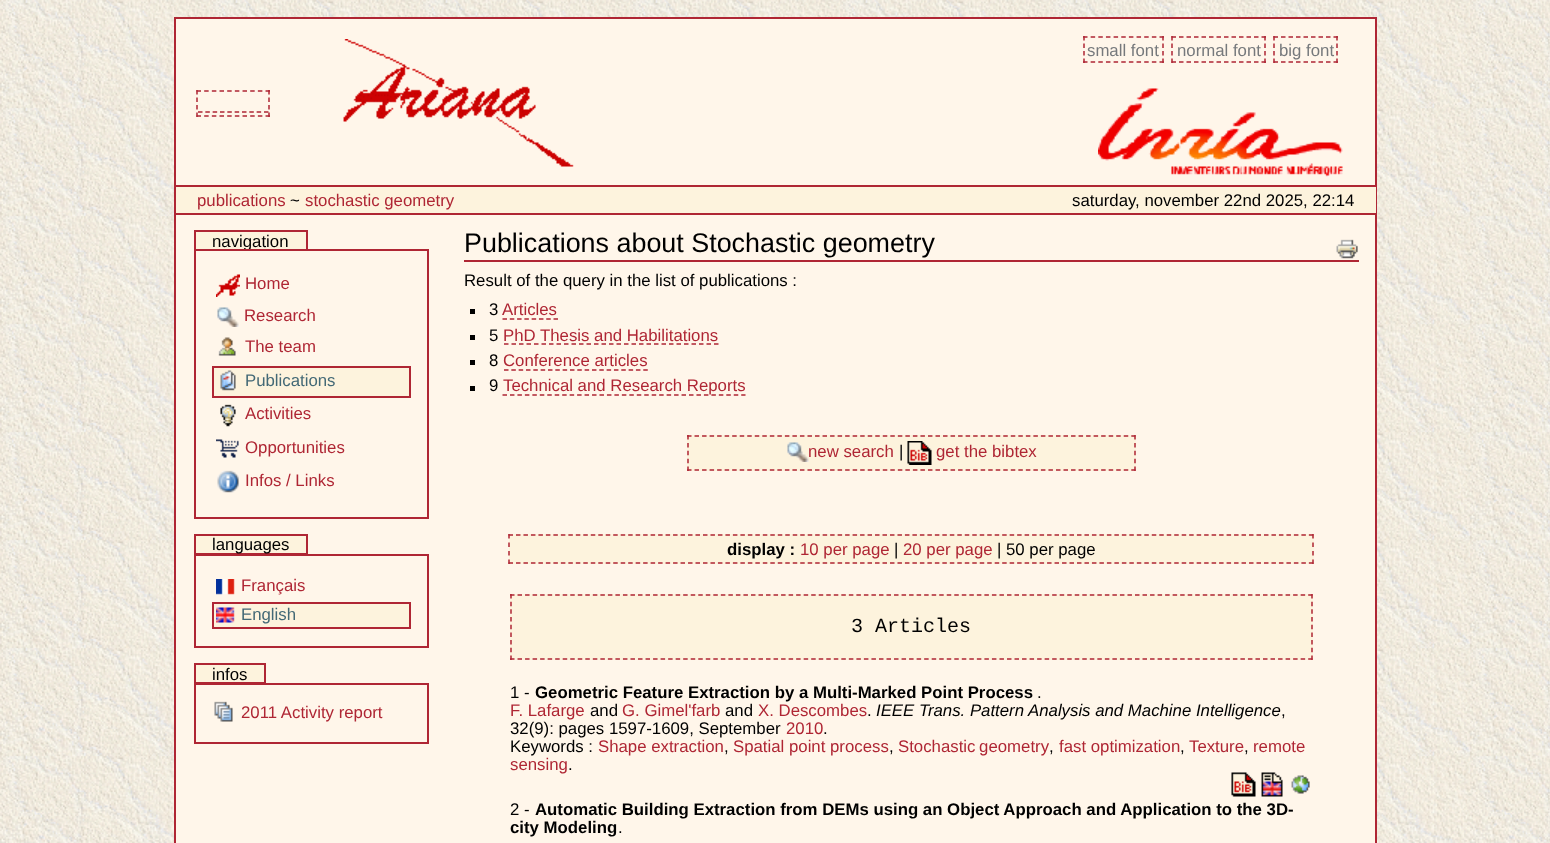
async function draw(canvas) {
  canvas.width = 1550;
  canvas.height = 843;
  const ctx = canvas.getContext('2d');
  ctx.miterLimit = 4;
  ctx.fontKerning = 'normal';
  function label(s, x, y, font, color) {
    ctx.font = font;
    ctx.fillStyle = color;
    ctx.fillText(s, x, y);
  }
  function rect(x, y, w, h, color) {
    ctx.fillStyle = color;
    ctx.fillRect(x, y, w, h);
  }
  async function image(src, x, y, w, h) {
    const img = new Image();
    img.src = src;
    await img.decode();
    ctx.drawImage(img, x, y, w, h);
  }
  let path;

  rect(0, 0, 1550, 843, '#fff');
  await image('assets/img1.png', 0, 0, 1550, 843);
  ctx.fillStyle = '#fff6ea';
  ctx.beginPath();
  ctx.rect(175, 18, 1201, 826);
  ctx.fill();
  ctx.strokeStyle = '#af2634';
  ctx.lineWidth = 2;
  ctx.stroke();
  path = new Path2D('M196.5 91H270');
  ctx.lineWidth = 1.5;
  ctx.setLineDash([4.5, 3.17]);
  ctx.stroke(path);
  path = new Path2D('M269 90V117');
  ctx.setLineDash([4.5, 3]);
  ctx.stroke(path);
  path = new Path2D('M196.5 116H270');
  ctx.setLineDash([4.5, 3.17]);
  ctx.stroke(path);
  path = new Path2D('M197 90V117');
  ctx.setLineDash([4.5, 3]);
  ctx.stroke(path);
  path = new Path2D('M198 112H268.5');
  ctx.setLineDash([4.5, 2.83]);
  ctx.stroke(path);
  await image('assets/img2.png', 343, 39, 231, 128);
  label('small font', 1087, 56, '16.8px Liberation Sans', '#76797c');
  path = new Path2D('M1083 37H1164');
  ctx.setLineDash([4.5, 3.15]);
  ctx.stroke(path);
  path = new Path2D('M1163 36V63');
  ctx.setLineDash([4.5, 3]);
  ctx.stroke(path);
  path = new Path2D('M1083 62H1164');
  ctx.setLineDash([4.5, 3.15]);
  ctx.stroke(path);
  path = new Path2D('M1084 36V63');
  ctx.setLineDash([4.5, 3]);
  ctx.stroke(path);
  label('normal font', 1177, 56, '16.8px Liberation Sans', '#76797c');
  path = new Path2D('M1171.5 37H1266');
  ctx.stroke(path);
  path = new Path2D('M1265 36V63');
  ctx.stroke(path);
  path = new Path2D('M1171.5 62H1266');
  ctx.stroke(path);
  path = new Path2D('M1172 36V63');
  ctx.stroke(path);
  label('big font', 1279, 56, '16.8px Liberation Sans', '#76797c');
  path = new Path2D('M1273.5 37H1338');
  ctx.stroke(path);
  path = new Path2D('M1337 36V63');
  ctx.stroke(path);
  path = new Path2D('M1273.5 62H1338');
  ctx.stroke(path);
  path = new Path2D('M1274 36V63');
  ctx.stroke(path);
  await image('assets/img3.png', 1098, 88, 245, 89);
  rect(176, 187, 1200, 26, '#fdf3dd');
  rect(176, 185, 1200, 2, '#af2634');
  rect(176, 213, 1200, 2, '#af2634');
  label('publications', 197, 206, '16.8px Liberation Sans', '#af2634');
  label('~', 290, 206, '16.8px Liberation Sans', '#000');
  label('stochastic geometry', 305, 206, '16.8px Liberation Sans', '#af2634');
  label('saturday, november 22nd 2025, 22:14', 1072, 206, '16.8px Liberation Sans', '#000');
  ctx.fillStyle = '#fdf3dd';
  ctx.beginPath();
  ctx.rect(195, 231, 112, 19);
  ctx.fill();
  ctx.lineWidth = 2;
  ctx.setLineDash([]);
  ctx.stroke();
  label('navigation', 212, 247, '16.8px Liberation Sans', '#000');
  ctx.strokeRect(195, 250, 233, 268);
  await image('assets/img4.png', 216, 274, 24, 23);
  label('Home', 245, 289, '16.8px Liberation Sans', '#af2634');
  await image('assets/img5.png', 217, 307, 22, 20);
  label('Research', 244, 321, '16.8px Liberation Sans', '#af2634');
  await image('assets/img6.png', 218, 337, 18, 19);
  label('The team', 245, 352, '16.8px Liberation Sans', '#af2634');
  ctx.fillStyle = '#fdf3dd';
  ctx.beginPath();
  ctx.rect(213, 367, 197, 30);
  ctx.fill();
  ctx.stroke();
  await image('assets/img7.png', 220, 370, 16, 21);
  label('Publications', 245, 386, '16.8px Liberation Sans', '#436976');
  await image('assets/img8.png', 220, 404, 16, 23);
  label('Activities', 245, 419, '16.8px Liberation Sans', '#af2634');
  await image('assets/img9.png', 216, 439, 23, 19);
  label('Opportunities', 245, 453, '16.8px Liberation Sans', '#af2634');
  await image('assets/img10.png', 217, 470, 22, 23);
  label('Infos / Links', 245, 486, '16.8px Liberation Sans', '#af2634');
  ctx.fillStyle = '#fdf3dd';
  ctx.beginPath();
  ctx.rect(195, 535, 112, 19);
  ctx.fill();
  ctx.stroke();
  label('languages', 212, 550, '16.8px Liberation Sans', '#000');
  ctx.strokeRect(195, 555, 233, 92);
  await image('assets/img11.png', 216, 579, 19, 16);
  label('Français', 241, 591, '16.8px Liberation Sans', '#af2634');
  ctx.fillStyle = '#fdf3dd';
  ctx.beginPath();
  ctx.rect(213, 603, 197, 25);
  ctx.fill();
  ctx.stroke();
  await image('assets/img12.png', 216, 607, 19, 16);
  label('English', 241, 620, '16.8px Liberation Sans', '#436976');
  ctx.fillStyle = '#fdf3dd';
  ctx.beginPath();
  ctx.rect(195, 664, 70, 19);
  ctx.fill();
  ctx.stroke();
  label('infos', 212, 680, '16.8px Liberation Sans', '#000');
  ctx.strokeRect(195, 684, 233, 59);
  await image('assets/img13.png', 214, 701, 19, 21);
  label('2011 Activity report', 241, 718, '16.8px Liberation Sans', '#af2634');
  rect(464, 260, 895, 2, '#af2634');
  label('Publications about Stochastic geometry', 464, 252, '26.9px Liberation Sans', '#000');
  await image('assets/img14.png', 1336, 239, 22, 20);
  label('Result of the query in the list of publications :', 464, 286, '16.8px Liberation Sans', '#000');
  rect(470, 309, 5, 5, '#000');
  label('3', 489, 315, '16.8px Liberation Sans', '#000');
  label('Articles', 502, 315, '16.8px Liberation Sans', '#af2634');
  path = new Path2D('M502.5 319H558');
  ctx.lineWidth = 1.5;
  ctx.setLineDash([4.5, 2.79]);
  ctx.stroke(path);
  rect(470, 335, 5, 5, '#000');
  label('5', 489, 341, '16.8px Liberation Sans', '#000');
  label('PhD Thesis and Habilitations', 503, 341, '16.8px Liberation Sans', '#af2634');
  path = new Path2D('M504 344H718.5');
  ctx.setLineDash([4.5, 3]);
  ctx.stroke(path);
  rect(470, 360, 5, 5, '#000');
  label('8', 489, 366, '16.8px Liberation Sans', '#000');
  label('Conference articles', 503, 366, '16.8px Liberation Sans', '#af2634');
  path = new Path2D('M504 370H648');
  ctx.setLineDash([4.5, 2.83]);
  ctx.stroke(path);
  rect(470, 386, 5, 5, '#000');
  label('9', 489, 391, '16.8px Liberation Sans', '#000');
  path = new Path2D('M502.5 395H745.5');
  ctx.setLineDash([4.5, 2.96]);
  ctx.stroke(path);
  label('Technical and Research Reports', 503, 391, '16.8px Liberation Sans', '#af2634');
  rect(687, 435, 449, 36, '#fdf3dd');
  path = new Path2D('M687 436H1135.5');
  ctx.setLineDash([4.5, 3.03]);
  ctx.stroke(path);
  path = new Path2D('M1135 435V471');
  ctx.setLineDash([4.5, 3.38]);
  ctx.stroke(path);
  path = new Path2D('M687 470H1135.5');
  ctx.setLineDash([4.5, 3.03]);
  ctx.stroke(path);
  path = new Path2D('M688 435V471');
  ctx.setLineDash([4.5, 3.38]);
  ctx.stroke(path);
  await image('assets/img15.png', 787, 442, 22, 20);
  label('new search', 808, 457, '16.8px Liberation Sans', '#af2634');
  label('|', 899, 457, '16.8px Liberation Sans', '#000');
  await image('assets/img16.png', 907, 441, 25, 24);
  label('get the bibtex', 936, 457, '16.8px Liberation Sans', '#af2634');
  rect(509, 534, 805, 30, '#fdf3dd');
  path = new Path2D('M508.5 535H1314');
  ctx.setLineDash([4.5, 2.98]);
  ctx.stroke(path);
  path = new Path2D('M1313 534V564');
  ctx.setLineDash([4.5, 4]);
  ctx.stroke(path);
  path = new Path2D('M508.5 563H1314');
  ctx.setLineDash([4.5, 2.98]);
  ctx.stroke(path);
  path = new Path2D('M509 534V564');
  ctx.setLineDash([4.5, 4]);
  ctx.stroke(path);
  label('display :', 727, 555, 'bold 16.8px Liberation Sans', '#000');
  label('10 per page', 800, 555, '16.8px Liberation Sans', '#af2634');
  label('|', 894, 555, '16.8px Liberation Sans', '#000');
  label('20 per page', 903, 555, '16.8px Liberation Sans', '#af2634');
  label('| 50 per page', 997, 555, '16.8px Liberation Sans', '#000');
  rect(510, 594, 803, 66, '#fdf3dd');
  path = new Path2D('M510 595H1312.5');
  ctx.setLineDash([4.5, 3.03]);
  ctx.stroke(path);
  path = new Path2D('M1312 594V660');
  ctx.setLineDash([4.5, 3.18]);
  ctx.stroke(path);
  path = new Path2D('M510 659H1312.5');
  ctx.setLineDash([4.5, 3.03]);
  ctx.stroke(path);
  path = new Path2D('M511 594V660');
  ctx.setLineDash([4.5, 3.18]);
  ctx.stroke(path);
  label('3 Articles', 851, 632, '20px Liberation Mono', '#000');
  label('1 -', 510, 698, '16.8px Liberation Sans', '#000');
  label('Geometric Feature Extraction by a Multi-Marked Point Process', 535, 698, 'bold 16.8px Liberation Sans', '#000');
  label('.', 1037, 698, '16.8px Liberation Sans', '#000');
  label('F. Lafarge', 510, 716, '16.8px Liberation Sans', '#af2634');
  label('and', 590, 716, '16.8px Liberation Sans', '#000');
  label('G. Gimel\'farb', 622, 716, '16.8px Liberation Sans', '#af2634');
  label('and', 725, 716, '16.8px Liberation Sans', '#000');
  label('X. Descombes', 758, 716, '16.8px Liberation Sans', '#af2634');
  label('.', 867, 716, '16.8px Liberation Sans', '#000');
  label('IEEE Trans. Pattern Analysis and Machine Intelligence', 876, 716, 'italic 16.8px Liberation Sans', '#000');
  label(',', 1281, 716, '16.8px Liberation Sans', '#000');
  label('32(9): pages 1597-1609, September', 510, 734, '16.8px Liberation Sans', '#000');
  label('2010', 786, 734, '16.8px Liberation Sans', '#af2634');
  label('.', 823, 734, '16.8px Liberation Sans', '#000');
  label('Keywords :', 510, 752, '16.8px Liberation Sans', '#000');
  label('Shape extraction', 598, 752, '16.8px Liberation Sans', '#af2634');
  label(',', 724, 752, '16.8px Liberation Sans', '#000');
  label('Spatial point process', 733, 752, '16.8px Liberation Sans', '#af2634');
  label(',', 889, 752, '16.8px Liberation Sans', '#000');
  ctx.wordSpacing = '-1px';
  label('Stochastic geometry', 898, 752, '16.8px Liberation Sans', '#af2634');
  ctx.wordSpacing = '0px';
  label(',', 1049, 752, '16.8px Liberation Sans', '#000');
  label('fast optimization', 1059, 752, '16.8px Liberation Sans', '#af2634');
  label(',', 1180, 752, '16.8px Liberation Sans', '#000');
  label('Texture', 1189, 752, '16.8px Liberation Sans', '#af2634');
  label(',', 1244, 752, '16.8px Liberation Sans', '#000');
  label('remote', 1253, 752, '16.8px Liberation Sans', '#af2634');
  label('sensing', 510, 770, '16.8px Liberation Sans', '#af2634');
  label('.', 568, 770, '16.8px Liberation Sans', '#000');
  await image('assets/img17.png', 1231, 772, 25, 25);
  await image('assets/img18.png', 1261, 772, 22, 25);
  await image('assets/img19.png', 1291, 775, 19, 19);
  label('2 -', 510, 815, '16.8px Liberation Sans', '#000');
  label('Automatic Building Extraction from DEMs using an Object Approach and Application to the 3D-', 535, 815, 'bold 16.8px Liberation Sans', '#000');
  label('city Modeling', 510, 833, 'bold 16.8px Liberation Sans', '#000');
  label('.', 618, 833, '16.8px Liberation Sans', '#000');
}

draw(document.querySelector('canvas'));
